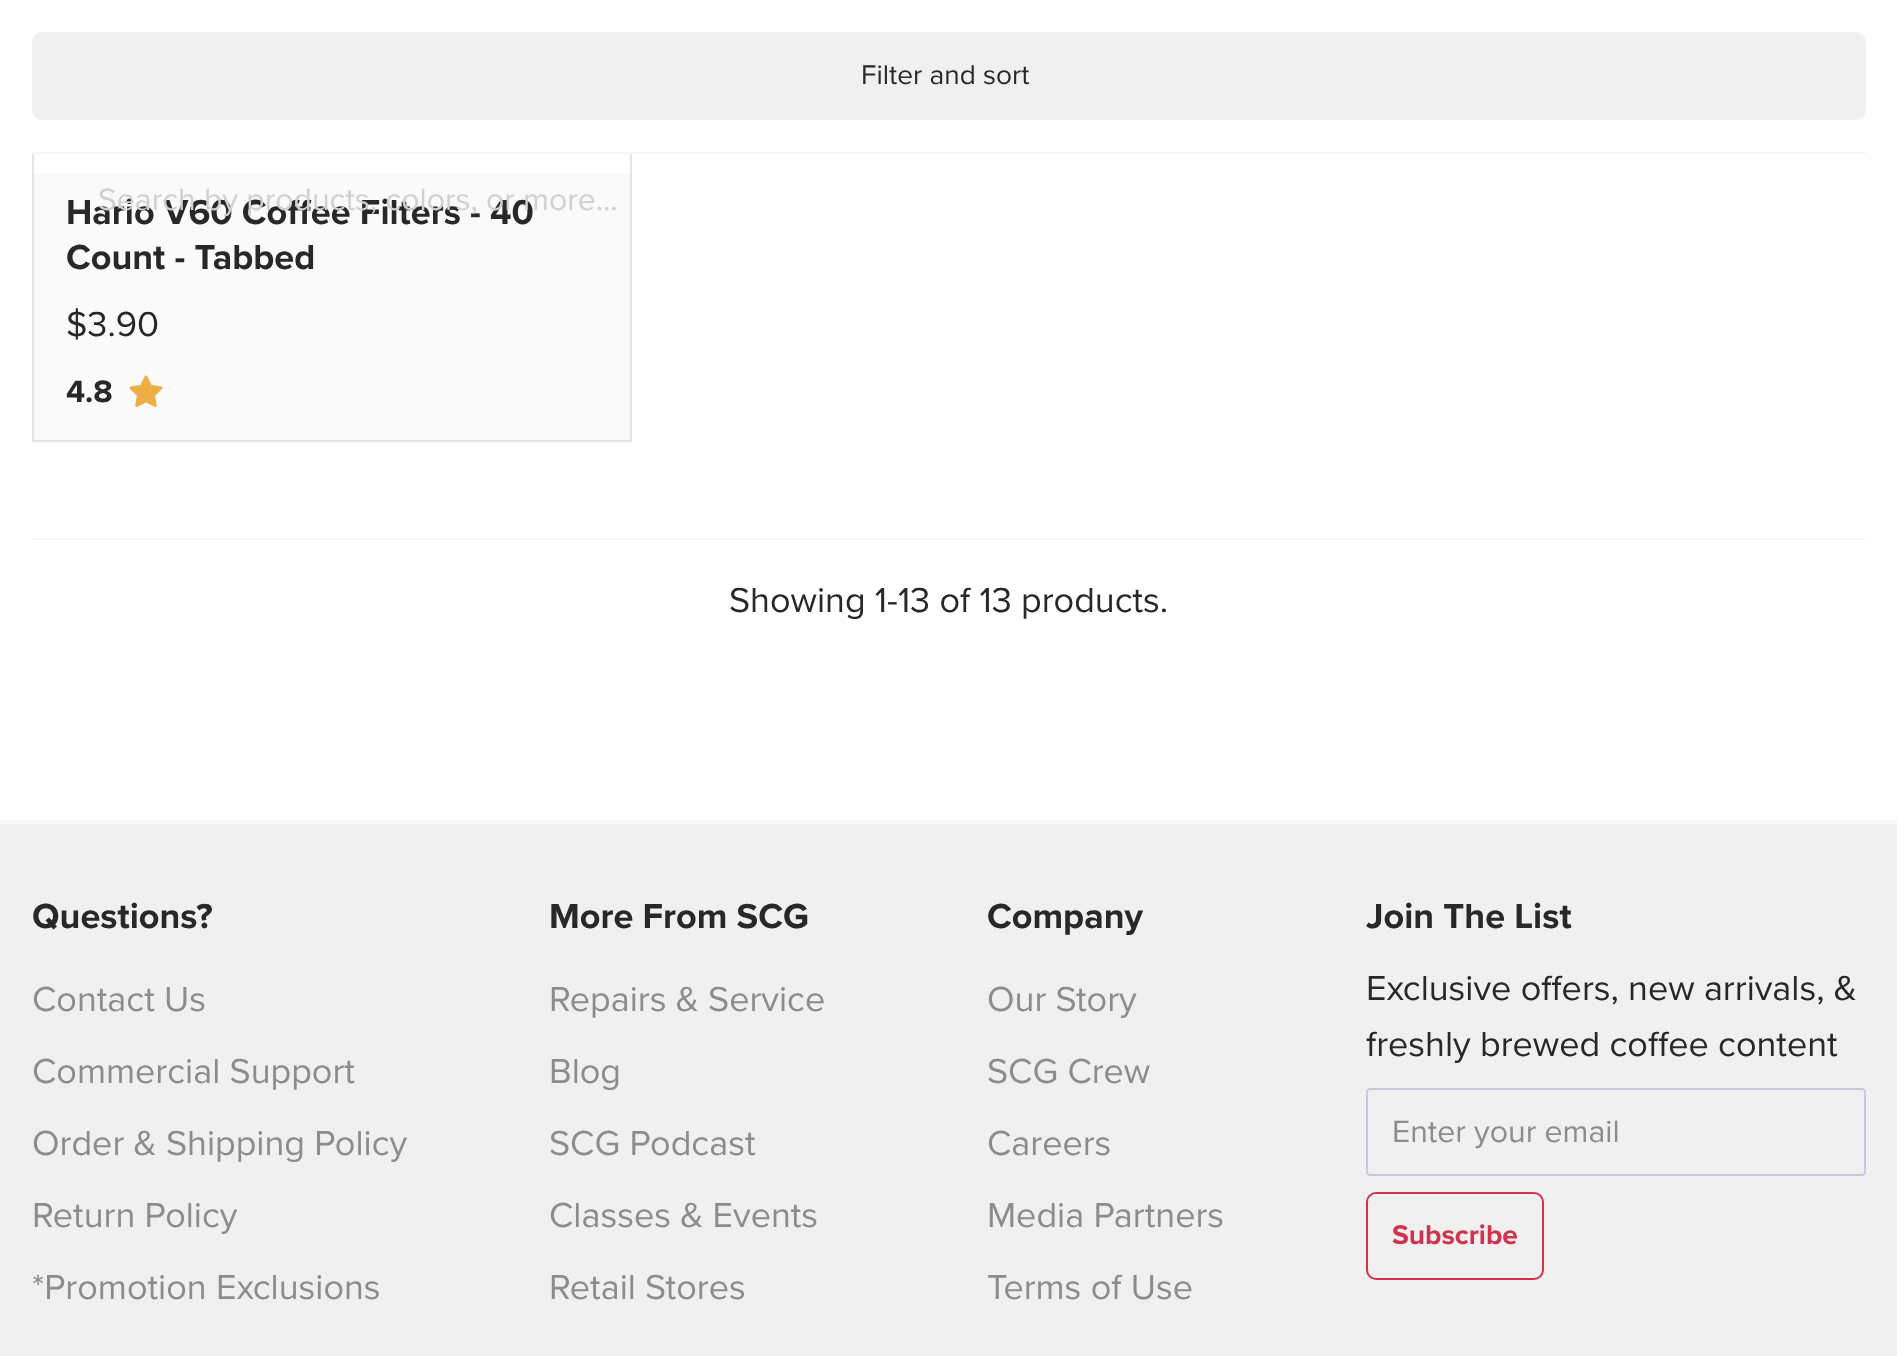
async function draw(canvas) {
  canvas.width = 1897;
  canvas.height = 1356;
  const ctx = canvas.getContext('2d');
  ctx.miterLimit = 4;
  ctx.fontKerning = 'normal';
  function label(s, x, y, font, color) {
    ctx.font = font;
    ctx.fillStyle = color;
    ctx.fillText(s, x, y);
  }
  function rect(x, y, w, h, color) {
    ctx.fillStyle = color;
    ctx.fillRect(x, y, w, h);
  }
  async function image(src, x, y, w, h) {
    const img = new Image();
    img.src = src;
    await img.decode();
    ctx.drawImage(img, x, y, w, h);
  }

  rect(0, 0, 1897, 1356, '#fff');
  rect(34, 174, 596, 266, '#fafafa');
  ctx.strokeStyle = '#e5e5e5';
  ctx.lineWidth = 2;
  ctx.strokeRect(33, -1, 598, 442);
  rect(32, 0, 600, 152, '#fff');
  rect(32, 152, 1834, 2, '#f7f7fa');
  ctx.fillStyle = '#f0f0f0';
  ctx.beginPath();
  ctx.roundRect(33, 33, 1832, 86, 9);
  ctx.fill();
  ctx.strokeStyle = '#f0f0f0';
  ctx.stroke();
  label('Filter and sort', 861, 84, '28px Proxima Nova', '#282828');
  label('Hario V60 Coffee Filters - 40', 66, 224, 'bold 36px Proxima Nova', '#282828');
  label('Count - Tabbed', 66, 269, 'bold 36px Proxima Nova', '#282828');
  label('$3.90', 66, 336, '36px Proxima Nova', '#282828');
  label('4.8', 66, 402, 'bold 32px Proxima Nova', '#282828');
  await image('assets/img1.png', 129, 375, 34, 32);
  rect(32, 538, 1834, 2, '#f7f7fa');
  label('Showing 1-13 of 13 products.', 729, 612, '36px Proxima Nova', '#282828');
  rect(0, 820, 1897, 4, '#f7f7fa');
  label('Search by products, colors, or more...', 98, 210, '32px Proxima Nova', '#d0d0d0');
  rect(0, 824, 1897, 532, '#f0f0f0');
  label('Questions?', 32, 928, 'bold 36px Proxima Nova', '#282828');
  label('Contact Us', 32, 1011, '36px Proxima Nova', '#8c8c8c');
  label('Commercial Support', 32, 1083, '36px Proxima Nova', '#8c8c8c');
  label('Order & Shipping Policy', 32, 1155, '36px Proxima Nova', '#8c8c8c');
  label('Return Policy', 32, 1227, '36px Proxima Nova', '#8c8c8c');
  label('*Promotion Exclusions', 32, 1299, '36px Proxima Nova', '#8c8c8c');
  label('More From SCG', 549, 928, 'bold 36px Proxima Nova', '#282828');
  label('Repairs & Service', 549, 1011, '36px Proxima Nova', '#8c8c8c');
  label('Blog', 549, 1083, '36px Proxima Nova', '#8c8c8c');
  label('SCG Podcast', 549, 1155, '36px Proxima Nova', '#8c8c8c');
  label('Classes & Events', 549, 1227, '36px Proxima Nova', '#8c8c8c');
  label('Retail Stores', 549, 1299, '36px Proxima Nova', '#8c8c8c');
  label('Company', 987, 928, 'bold 36px Proxima Nova', '#282828');
  label('Our Story', 987, 1011, '36px Proxima Nova', '#8c8c8c');
  label('SCG Crew', 987, 1083, '36px Proxima Nova', '#8c8c8c');
  label('Careers', 987, 1155, '36px Proxima Nova', '#8c8c8c');
  label('Media Partners', 987, 1227, '36px Proxima Nova', '#8c8c8c');
  label('Terms of Use', 987, 1299, '36px Proxima Nova', '#8c8c8c');
  label('Join The List', 1366, 928, 'bold 36px Proxima Nova', '#282828');
  label('Exclusive offers, new arrivals, &', 1366, 1000, '36px Proxima Nova', '#282828');
  label('freshly brewed coffee content', 1366, 1056, '36px Proxima Nova', '#282828');
  ctx.beginPath();
  ctx.roundRect(1367, 1089, 498, 86, 3);
  ctx.strokeStyle = '#c8c8dd';
  ctx.stroke();
  label('Enter your email', 1392, 1142, '32px Proxima Nova', '#8c8c8c');
  ctx.beginPath();
  ctx.roundRect(1367, 1193, 176, 86, 9);
  ctx.strokeStyle = '#d2324c';
  ctx.stroke();
  label('Subscribe', 1392, 1244, 'bold 28px Proxima Nova', '#d2324c');
}

draw(document.querySelector('canvas'));
